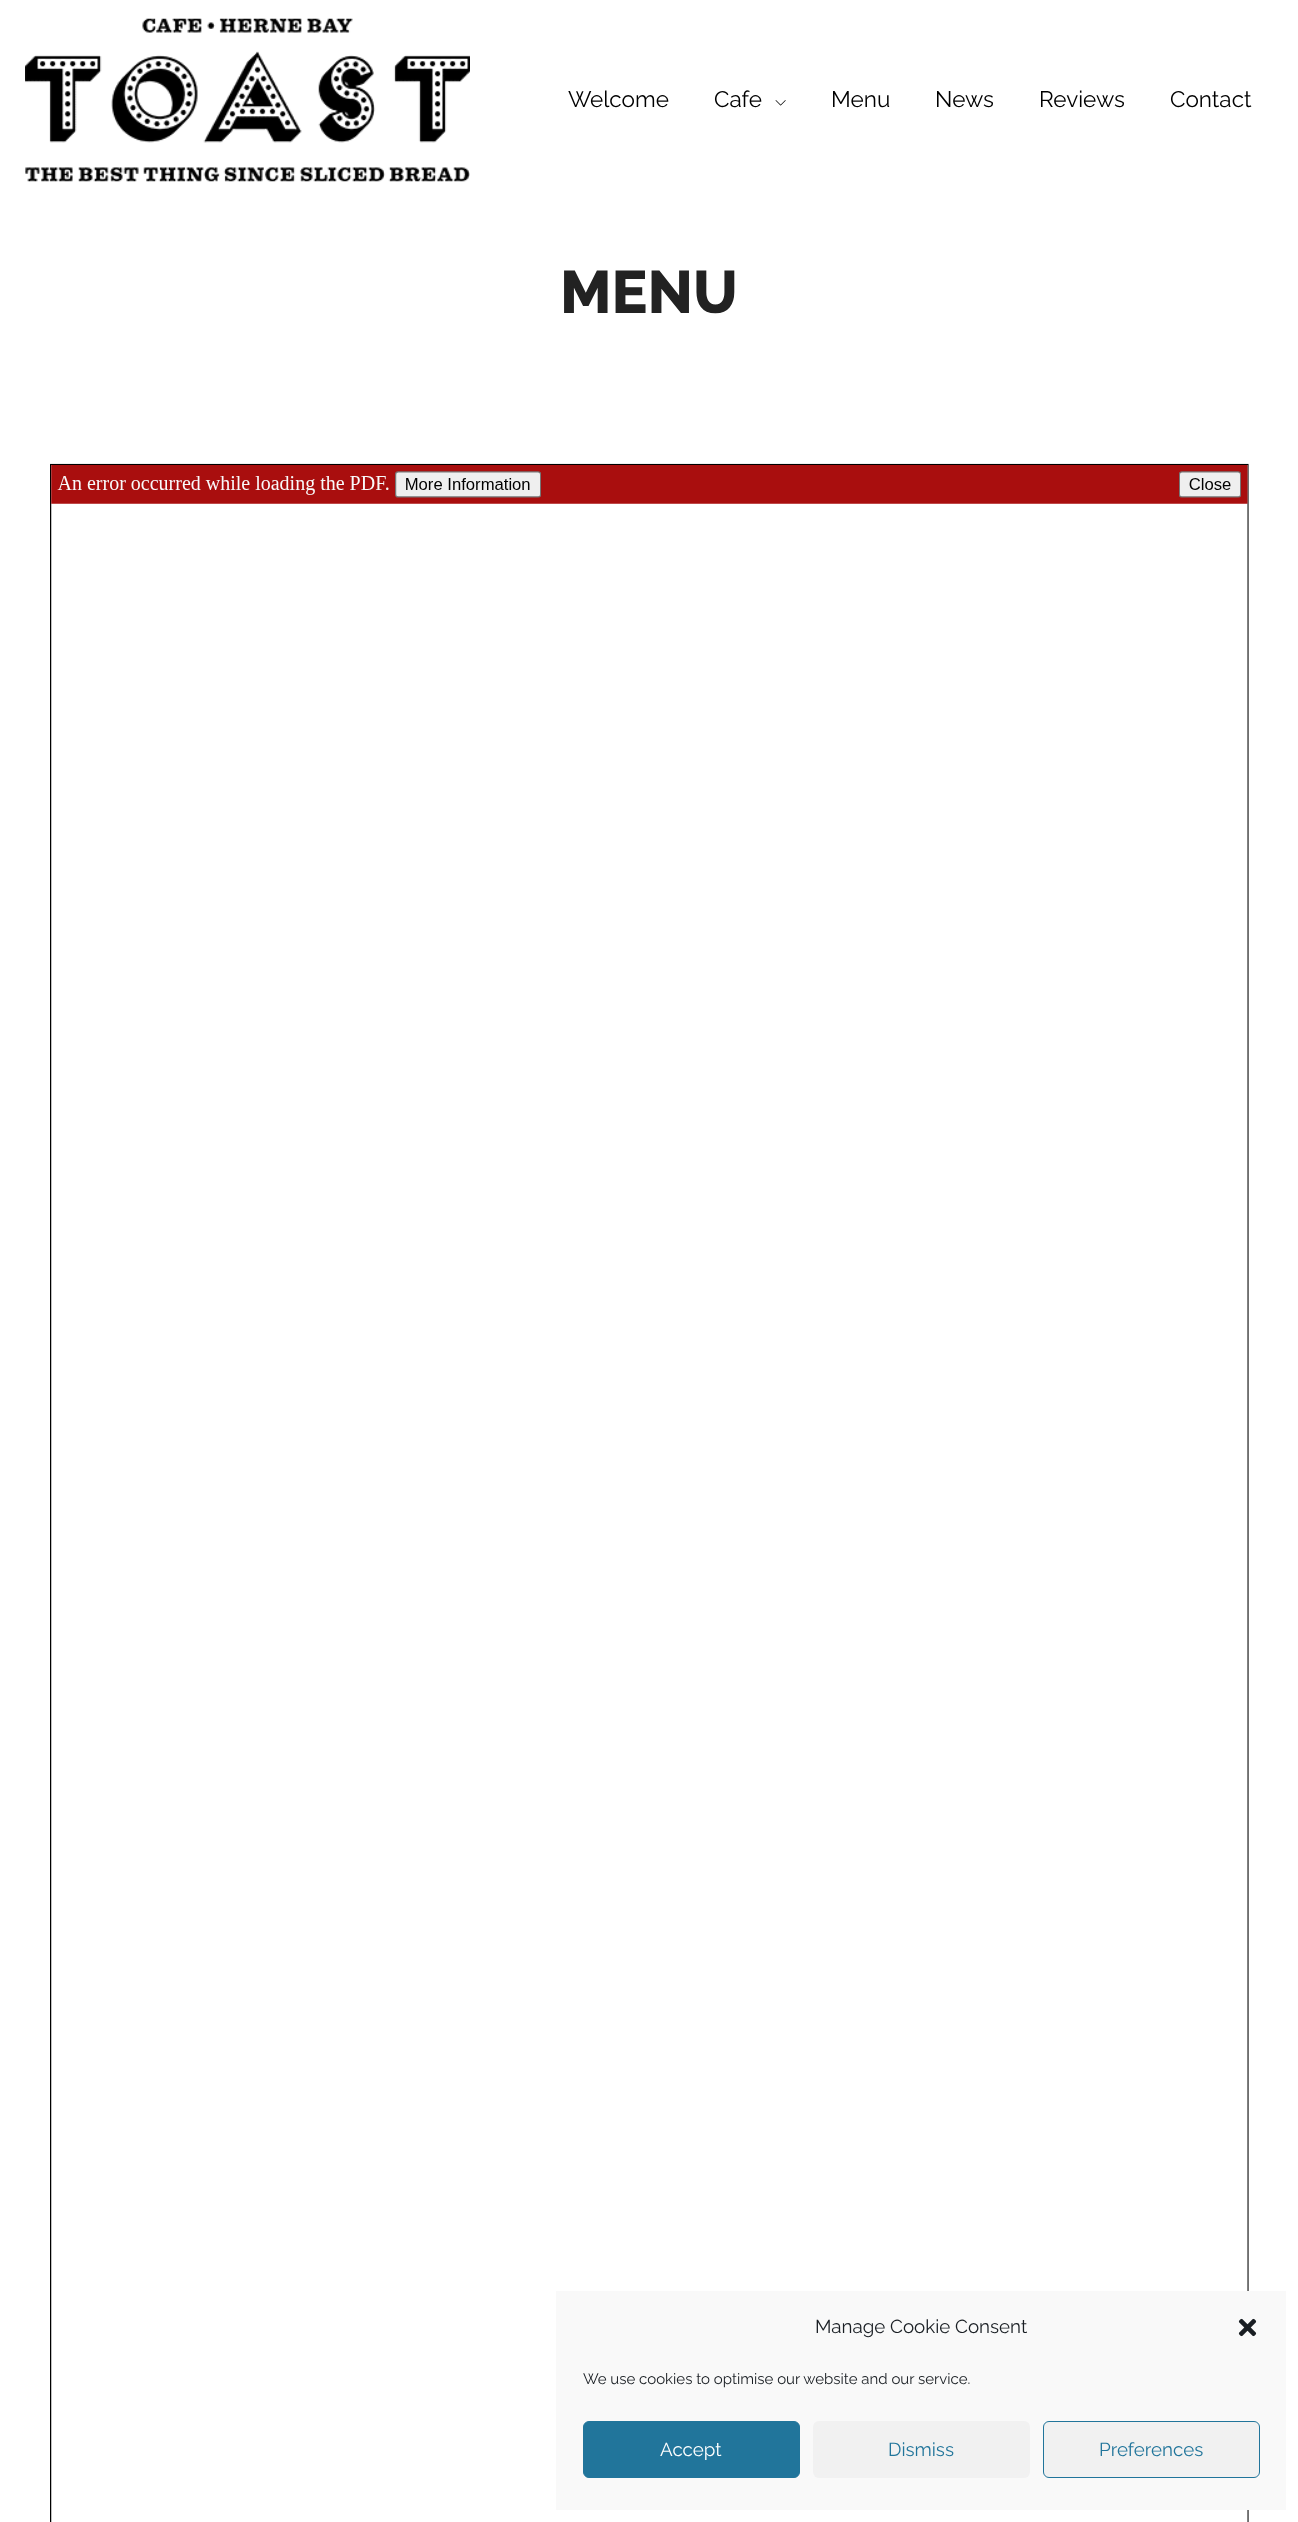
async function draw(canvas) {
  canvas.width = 1298;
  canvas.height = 2522;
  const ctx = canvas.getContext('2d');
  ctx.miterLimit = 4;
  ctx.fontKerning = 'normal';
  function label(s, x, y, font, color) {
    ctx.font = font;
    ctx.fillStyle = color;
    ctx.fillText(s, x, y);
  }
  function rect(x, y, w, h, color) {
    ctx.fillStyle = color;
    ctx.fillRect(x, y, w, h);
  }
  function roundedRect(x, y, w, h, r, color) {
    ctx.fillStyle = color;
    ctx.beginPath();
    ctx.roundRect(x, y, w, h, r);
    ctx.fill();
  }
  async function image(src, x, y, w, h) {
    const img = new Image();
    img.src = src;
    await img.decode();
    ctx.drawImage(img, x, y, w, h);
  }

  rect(0, 0, 1298, 2522, '#fff');
  await image('assets/img1.png', 25, 18, 445, 164);
  label('Welcome', 568, 107, '22.5px Raleway', '#000');
  label('Cafe', 714, 107, '22.5px Raleway', '#000');
  await image('assets/img2.png', 775, 100, 11, 6);
  label('Menu', 831, 107, '22.5px Raleway', '#000');
  label('News', 935, 107, '22.5px Raleway', '#000');
  label('Reviews', 1039, 107, '22.5px Raleway', '#000');
  label('Contact', 1170, 107, '22.5px Raleway', '#000');
  label('MENU', 560, 313, '800 60px Raleway', '#222');
  await image('assets/img3.png', 50, 463, 1199, 2059);
  rect(556, 2291, 730, 219, '#f9f9f9');
  label('Manage Cookie Consent', 815, 2333, '18.75px Raleway', '#191e23');
  await image('assets/img4.png', 1238, 2318, 19, 19);
  label('We use cookies to optimise our website and our service.', 583, 2384, '15px Raleway', '#191e23');
  ctx.fillStyle = '#21759b';
  ctx.beginPath();
  ctx.roundRect(583.5, 2421.5, 216, 56, 5.5);
  ctx.fill();
  ctx.strokeStyle = '#21759b';
  ctx.stroke();
  label('Accept', 660, 2456, '18.75px Raleway', '#fff');
  roundedRect(813, 2421, 217, 57, 6, '#f1f1f1');
  label('Dismiss', 888, 2456, '18.75px Raleway', '#21759b');
  ctx.fillStyle = '#f1f1f1';
  ctx.beginPath();
  ctx.roundRect(1043.5, 2421.5, 216, 56, 5.5);
  ctx.fill();
  ctx.stroke();
  label('Preferences', 1099, 2456, '18.75px Raleway', '#21759b');
}

draw(document.querySelector('canvas'));
